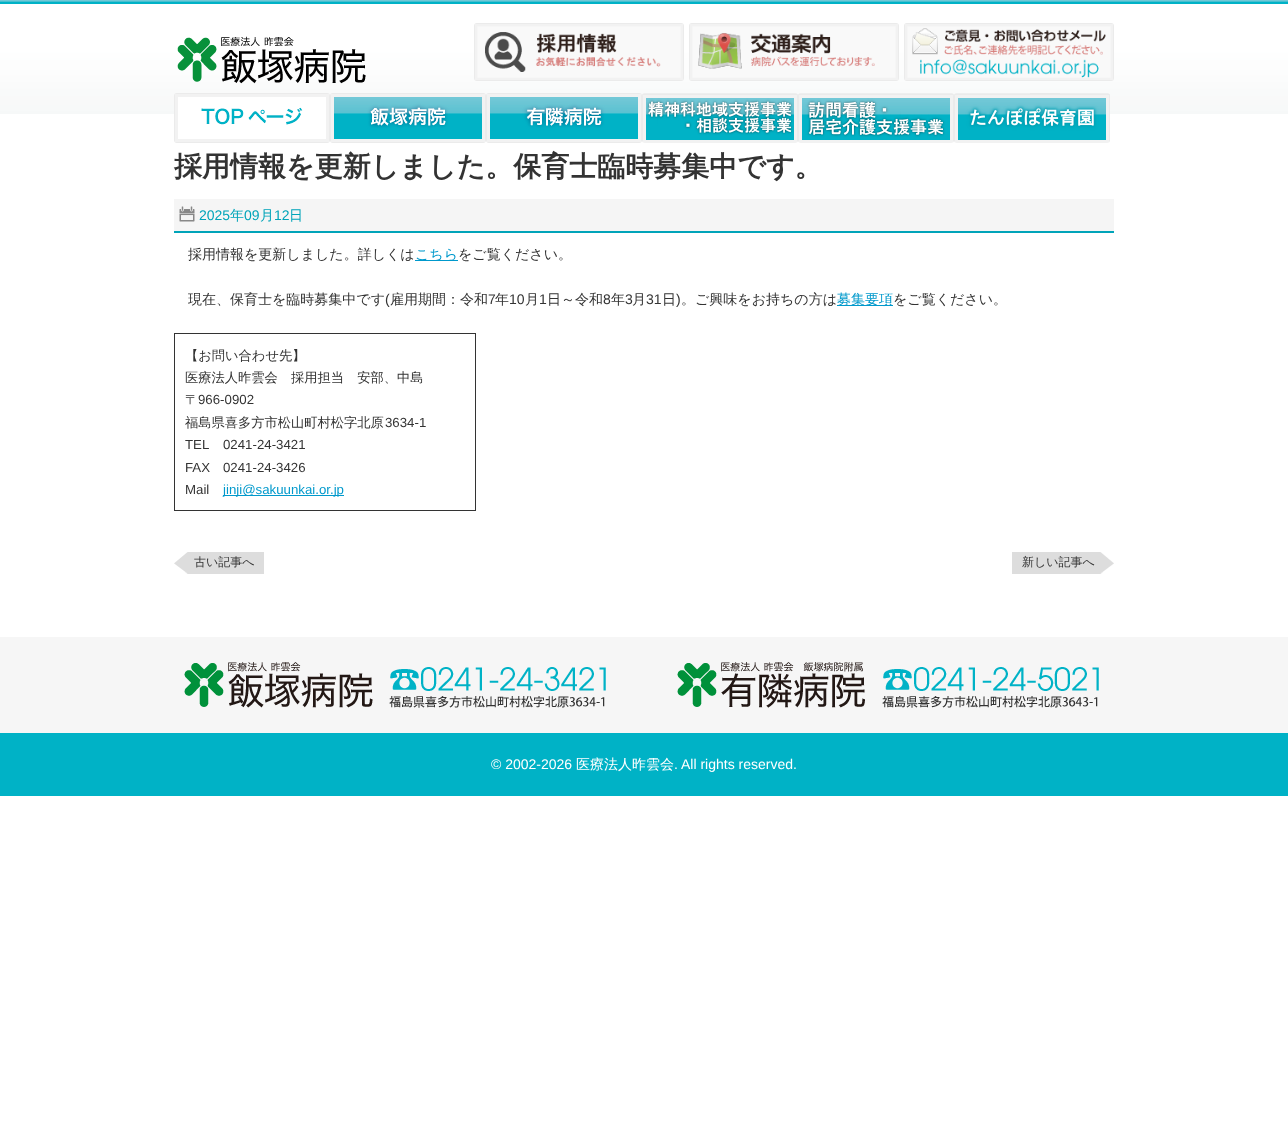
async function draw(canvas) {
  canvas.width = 1288;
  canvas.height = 1123;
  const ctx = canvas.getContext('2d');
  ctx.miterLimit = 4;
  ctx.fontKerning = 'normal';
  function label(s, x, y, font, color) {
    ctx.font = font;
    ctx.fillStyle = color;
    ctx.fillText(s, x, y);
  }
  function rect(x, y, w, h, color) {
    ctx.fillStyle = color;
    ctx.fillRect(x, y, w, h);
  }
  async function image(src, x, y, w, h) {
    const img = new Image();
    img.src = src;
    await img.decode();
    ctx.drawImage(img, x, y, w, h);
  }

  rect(0, 0, 1288, 1123, '#fff');
  await image('assets/img1.png', 0, 0, 1288, 114);
  await image('assets/img2.png', 177, 36, 189, 48);
  await image('assets/img3.png', 474, 23, 210, 58);
  await image('assets/img4.png', 689, 23, 210, 58);
  await image('assets/img5.png', 904, 23, 210, 58);
  await image('assets/img6.png', 174, 93, 156, 50);
  await image('assets/img7.png', 330, 93, 156, 50);
  await image('assets/img8.png', 486, 93, 156, 50);
  await image('assets/img9.png', 642, 93, 156, 50);
  await image('assets/img10.png', 798, 93, 156, 50);
  await image('assets/img11.png', 954, 93, 156, 50);
  label('採用情報を更新しました。保育士臨時募集中です。', 174, 176, 'bold 28px WenQuanYi Zen Hei', '#333');
  rect(174, 199, 940, 32, '#f5f5f5');
  rect(174, 231, 940, 2, '#00a4b9');
  await image('assets/img12.png', 179, 206, 16, 16);
  label('2025', 199, 220, '14px Liberation Sans', '#00a4b9');
  label('年', 230, 220, '500 14px WenQuanYi Zen Hei', '#00a4b9');
  label('09', 244, 220, '14px Liberation Sans', '#00a4b9');
  label('月', 260, 220, '500 14px WenQuanYi Zen Hei', '#00a4b9');
  label('12', 274, 220, '14px Liberation Sans', '#00a4b9');
  label('日', 289, 220, '500 14px WenQuanYi Zen Hei', '#00a4b9');
  label('採用情報を更新しました。詳しくは', 188, 259, '500 14px WenQuanYi Zen Hei', '#333');
  rect(415, 260, 43, 1, '#09c');
  label('こちら', 415, 259, '500 14px WenQuanYi Zen Hei', '#09c');
  label('をご覧ください。', 458, 259, '500 14px WenQuanYi Zen Hei', '#333');
  label('現在、保育士を臨時募集中です', 188, 304, '500 14px WenQuanYi Zen Hei', '#333');
  label('(', 385, 304, '14px Liberation Sans', '#333');
  label('雇用期間：令和', 390, 304, '500 14px WenQuanYi Zen Hei', '#333');
  label('7', 488, 304, '14px Liberation Sans', '#333');
  label('年', 495, 304, '500 14px WenQuanYi Zen Hei', '#333');
  label('10', 509, 304, '14px Liberation Sans', '#333');
  label('月', 525, 304, '500 14px WenQuanYi Zen Hei', '#333');
  label('1', 539, 304, '14px Liberation Sans', '#333');
  label('日～令和', 547, 304, '500 14px WenQuanYi Zen Hei', '#333');
  label('8', 603, 304, '14px Liberation Sans', '#333');
  label('年', 611, 304, '500 14px WenQuanYi Zen Hei', '#333');
  label('3', 625, 304, '14px Liberation Sans', '#333');
  label('月', 632, 304, '500 14px WenQuanYi Zen Hei', '#333');
  label('31', 646, 304, '14px Liberation Sans', '#333');
  label('日', 662, 304, '500 14px WenQuanYi Zen Hei', '#333');
  label(')', 676, 304, '14px Liberation Sans', '#333');
  label('。ご興味をお持ちの方は', 681, 304, '500 14px WenQuanYi Zen Hei', '#333');
  rect(837, 305, 56, 1, '#09c');
  label('募集要項', 837, 304, '500 14px WenQuanYi Zen Hei', '#09c');
  label('をご覧ください。', 893, 304, '500 14px WenQuanYi Zen Hei', '#333');
  ctx.strokeStyle = '#333';
  ctx.strokeRect(174.5, 333.5, 301, 177);
  label('【お問い合わせ先】', 185, 360, '500 13.25px WenQuanYi Zen Hei', '#333');
  label('医療法人昨雲会　採用担当　安部、中島', 185, 382, '500 13.25px WenQuanYi Zen Hei', '#333');
  label('〒', 185, 404, '500 13.25px WenQuanYi Zen Hei', '#333');
  label('966-0902', 198, 404, '13.25px Liberation Sans', '#333');
  label('福島県喜多方市松山町村松字北原', 185, 427, '500 13.25px WenQuanYi Zen Hei', '#333');
  label('3634-1', 385, 427, '13.25px Liberation Sans', '#333');
  label('TEL', 185, 449, '13.25px Liberation Sans', '#333');
  label('0241-24-3421', 223, 449, '13.25px Liberation Sans', '#333');
  label('FAX', 185, 472, '13.25px Liberation Sans', '#333');
  label('0241-24-3426', 223, 472, '13.25px Liberation Sans', '#333');
  label('Mail', 185, 494, '13.25px Liberation Sans', '#333');
  rect(223, 495, 121, 1, '#09c');
  label('jinji@sakuunkai.or.jp', 223, 494, '13.25px Liberation Sans', '#09c');
  await image('assets/img13.png', 174, 552, 90, 22);
  label('古い記事へ', 194, 566, '500 12px WenQuanYi Zen Hei', '#333');
  await image('assets/img14.png', 1012, 552, 102, 22);
  label('新しい記事へ', 1022, 566, '500 12px WenQuanYi Zen Hei', '#333');
  rect(0, 637, 1288, 96, '#f6f6f6');
  await image('assets/img15.png', 184, 662, 915, 46);
  rect(0, 733, 1288, 63, '#00b2c6');
  label('© 2002-2026', 491, 769, '14px Liberation Sans', '#fff');
  label('医療法人昨雲会', 576, 769, '500 14px WenQuanYi Zen Hei', '#fff');
  label('. All rights reserved.', 674, 769, '14px Liberation Sans', '#fff');
}

draw(document.querySelector('canvas'));
